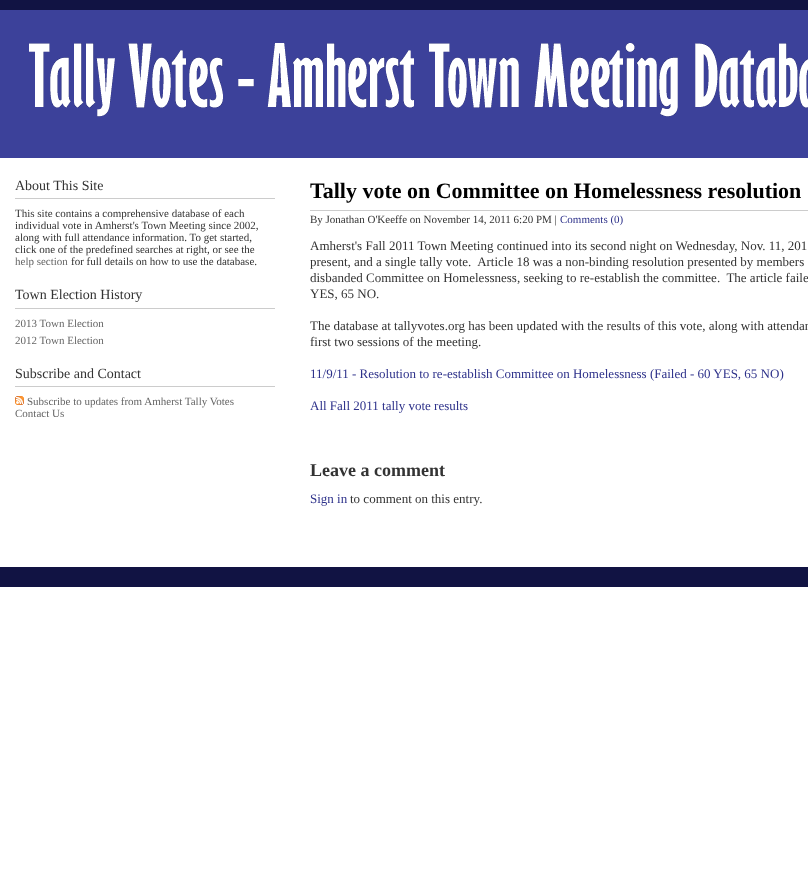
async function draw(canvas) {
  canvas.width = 808;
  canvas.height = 871;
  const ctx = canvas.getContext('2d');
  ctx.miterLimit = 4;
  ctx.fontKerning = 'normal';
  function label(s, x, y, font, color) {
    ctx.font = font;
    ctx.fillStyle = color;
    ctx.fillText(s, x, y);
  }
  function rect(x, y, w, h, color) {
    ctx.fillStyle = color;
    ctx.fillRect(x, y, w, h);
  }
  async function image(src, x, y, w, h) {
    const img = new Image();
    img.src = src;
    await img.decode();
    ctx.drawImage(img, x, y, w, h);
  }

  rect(0, 0, 808, 871, '#fff');
  rect(0, 10, 808, 148, '#3c419a');
  rect(0, 0, 808, 10, '#111343');
  await image('assets/img1.png', 29, 43, 779, 74);
  rect(15, 198, 260, 1, '#ccc');
  label('About This Site', 15, 190, '14px Liberation Serif', '#333');
  label('This site contains a comprehensive database of each', 15, 217, '11px Liberation Serif', '#333');
  label('individual vote in Amherst\'s Town Meeting since 2002,', 15, 229, '11px Liberation Serif', '#333');
  label('along with full attendance information. To get started,', 15, 241, '11px Liberation Serif', '#333');
  label('click one of the predefined searches at right, or see the', 15, 253, '11px Liberation Serif', '#333');
  label('help section', 15, 265, '11px Liberation Serif', '#666');
  label('for full details on how to use the database.', 71, 265, '11px Liberation Serif', '#333');
  rect(15, 308, 260, 1, '#ccc');
  label('Town Election History', 15, 299, '14px Liberation Serif', '#333');
  label('2013 Town Election', 15, 327, '11px Liberation Serif', '#666');
  label('2012 Town Election', 15, 344, '11px Liberation Serif', '#666');
  rect(15, 386, 260, 1, '#ccc');
  label('Subscribe and Contact', 15, 378, '14px Liberation Serif', '#333');
  await image('assets/img2.png', 15, 396, 9, 9);
  label('Subscribe to updates from Amherst Tally Votes', 27, 405, '11px Liberation Serif', '#666');
  label('Contact Us', 15, 417, '11px Liberation Serif', '#666');
  label('Tally vote on Committee on Homelessness resolution', 310, 198, 'bold 22px Liberation Serif', '#000');
  rect(310, 210, 498, 1, '#ccc');
  label('By Jonathan O\'Keeffe on November 14, 2011 6:20 PM |', 310, 223, '11px Liberation Serif', '#333');
  label('Comments (0)', 560, 223, '11px Liberation Serif', '#2d318a');
  label('Amherst\'s Fall 2011 Town Meeting continued into its second night on Wednesday, Nov. 11, 201', 310, 250, '13px Liberation Serif', '#333');
  label('present, and a single tally vote.  Article 18 was a non-binding resolution presented by members', 310, 266, '13px Liberation Serif', '#333');
  label('disbanded Committee on Homelessness, seeking to re-establish the committee.  The article faile', 310, 282, '13px Liberation Serif', '#333');
  label('YES, 65 NO.', 310, 298, '13px Liberation Serif', '#333');
  label('The database at tallyvotes.org has been updated with the results of this vote, along with attendan', 310, 330, '13px Liberation Serif', '#333');
  label('first two sessions of the meeting.', 310, 346, '13px Liberation Serif', '#333');
  label('11/9/11 - Resolution to re-establish Committee on Homelessness (Failed - 60 YES, 65 NO)', 310, 378, '13px Liberation Serif', '#2d318a');
  label('All Fall 2011 tally vote results', 310, 410, '13px Liberation Serif', '#2d318a');
  label('Leave a comment', 310, 476, 'bold 18px Liberation Serif', '#333');
  label('Sign in', 310, 503, '13px Liberation Serif', '#2d318a');
  label('to comment on this entry.', 350, 503, '13px Liberation Serif', '#333');
  rect(0, 567, 808, 20, '#111343');
}

draw(document.querySelector('canvas'));
